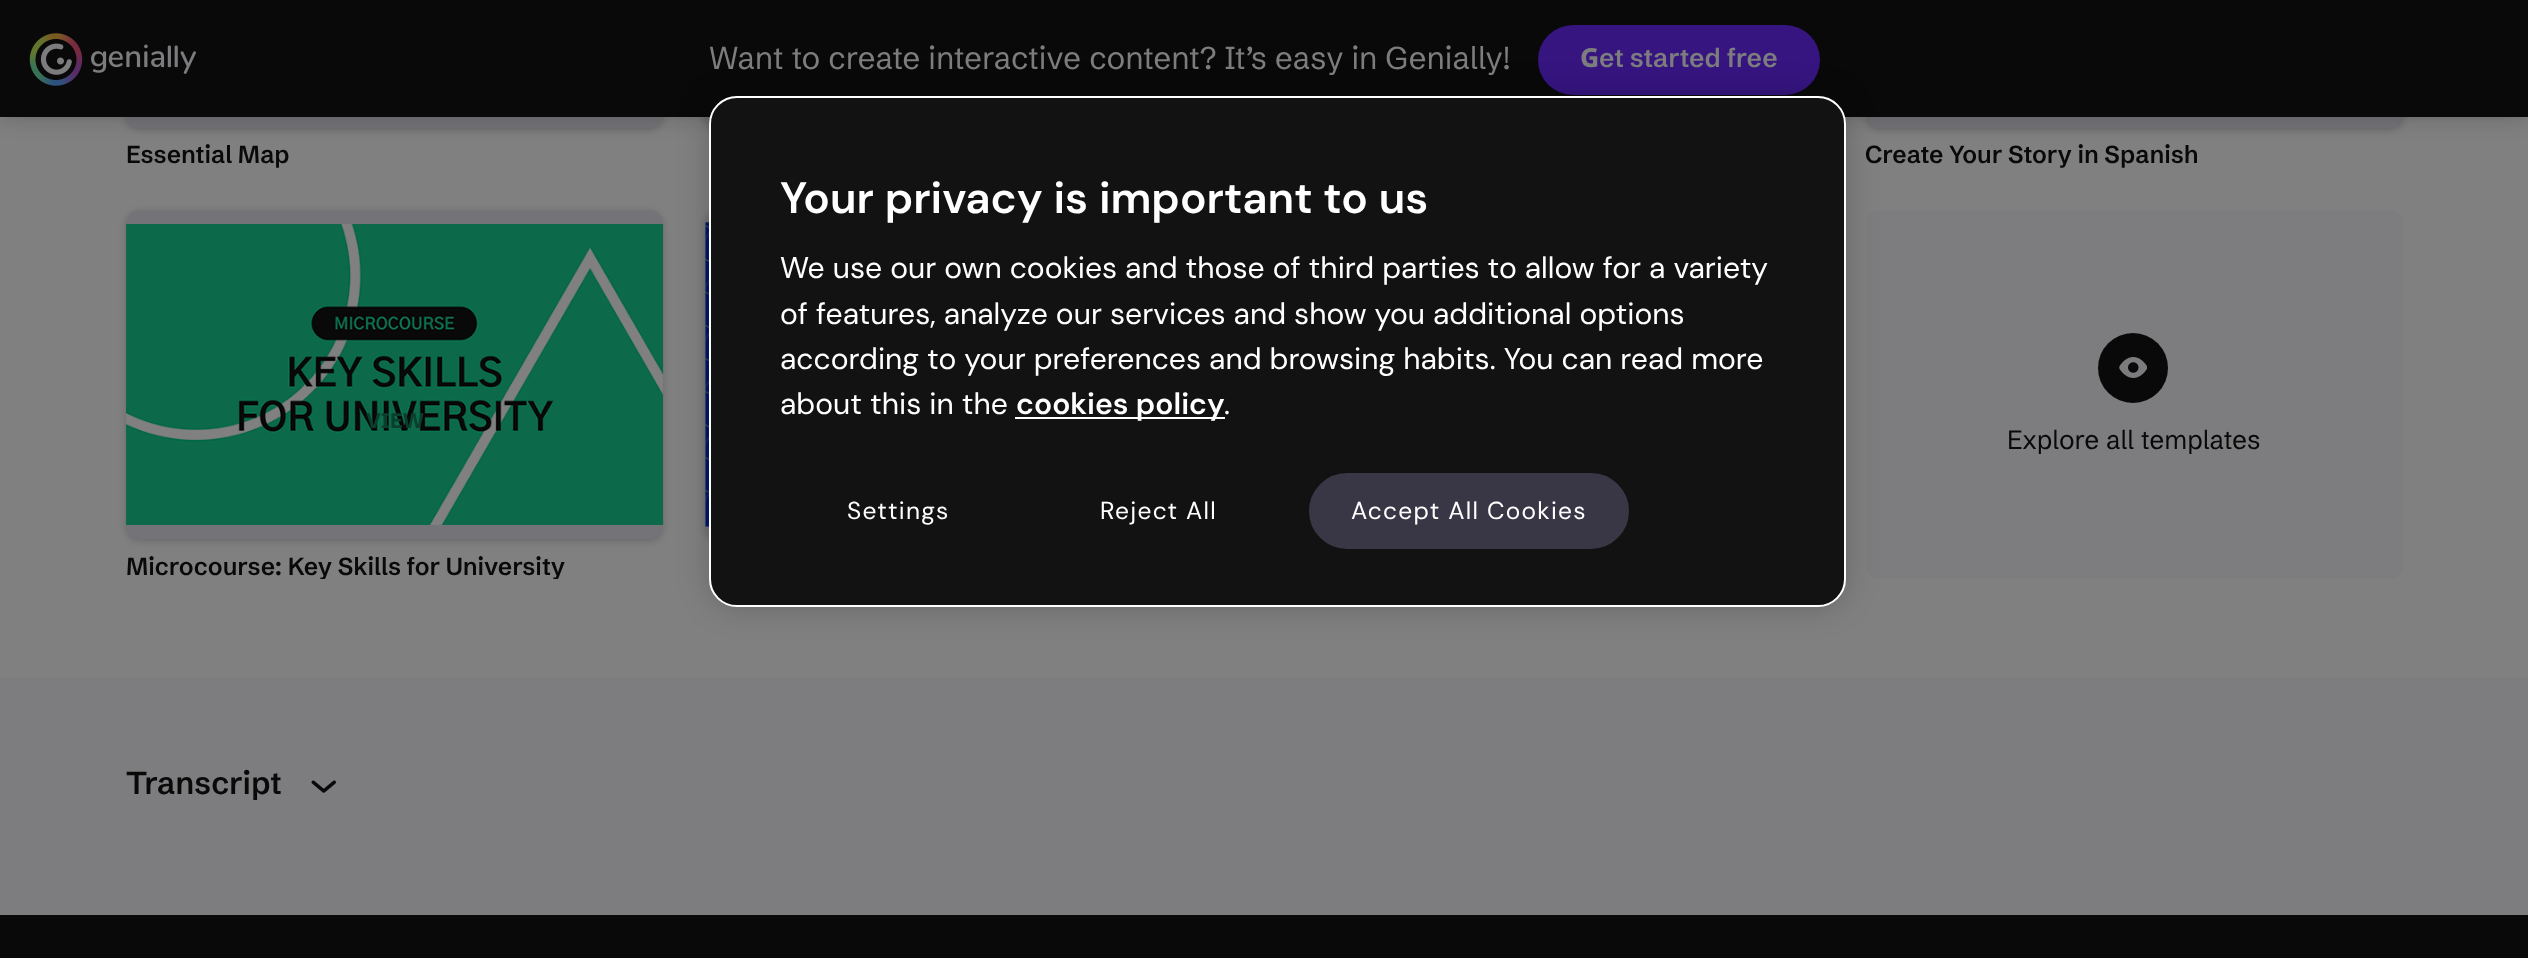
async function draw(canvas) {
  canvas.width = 2528;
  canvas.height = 958;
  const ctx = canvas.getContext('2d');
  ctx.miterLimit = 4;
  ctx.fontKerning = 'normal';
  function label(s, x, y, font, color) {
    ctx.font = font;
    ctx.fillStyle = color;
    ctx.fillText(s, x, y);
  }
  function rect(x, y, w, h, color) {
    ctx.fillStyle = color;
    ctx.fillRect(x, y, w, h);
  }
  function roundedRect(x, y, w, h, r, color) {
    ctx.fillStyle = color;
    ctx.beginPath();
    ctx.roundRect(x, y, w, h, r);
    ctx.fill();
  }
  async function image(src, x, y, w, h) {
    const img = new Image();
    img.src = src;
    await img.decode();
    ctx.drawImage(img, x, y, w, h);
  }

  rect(0, 0, 2528, 958, '#808080');
  ctx.fillStyle = '#09090933';
  ctx.filter = 'blur(3.5px)';
  ctx.beginPath();
  ctx.roundRect(705, -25, 539, 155, 14);
  ctx.fill();
  ctx.filter = 'none';
  roundedRect(705, -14, 539, 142, 14, '#747378');
  ctx.fillStyle = '#09090933';
  ctx.filter = 'blur(3.5px)';
  ctx.beginPath();
  ctx.roundRect(126, -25, 537, 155, 14);
  ctx.fill();
  ctx.filter = 'none';
  roundedRect(126, -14, 537, 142, 14, '#747378');
  ctx.fillStyle = '#09090933';
  ctx.filter = 'blur(3.5px)';
  ctx.beginPath();
  ctx.roundRect(1866, -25, 537, 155, 14);
  ctx.fill();
  ctx.filter = 'none';
  roundedRect(1866, -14, 537, 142, 14, '#747378');
  ctx.fillStyle = '#0909094d';
  ctx.filter = 'blur(11.5px)';
  ctx.beginPath();
  ctx.rect(0, -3, 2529, 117);
  ctx.fill();
  ctx.filter = 'none';
  rect(0, 0, 2528, 117, '#090909');
  await image('assets/img1.png', 29, 33, 167, 53);
  label('Want to create interactive content? It’s easy in Genially!', 709, 69, '31.5px Schibsted Grotesk', '#7d7c7e');
  roundedRect(1538, 25, 282, 70, 35, '#361580');
  label('G', 1580, 67, '800 26.25px Noto Sans', '#7d7c7e');
  label('et started free', 1599, 67, '600 26.25px Schibsted Grotesk', '#7d7c7e');
  label('Essential Map', 126, 163, '600 24.5px Schibsted Grotesk', '#090909');
  label('Create Your Story in Spanish', 1865, 163, '600 24.5px Schibsted Grotesk', '#090909');
  ctx.fillStyle = '#09090933';
  ctx.filter = 'blur(3.5px)';
  ctx.beginPath();
  ctx.roundRect(126, 212, 537, 329, 14);
  ctx.fill();
  ctx.filter = 'none';
  roundedRect(126, 210, 537, 329, 14, '#747378');
  await image('assets/img2.png', 126, 224, 538, 301);
  label('VIEW', 366, 428, 'bold 21px Schibsted Grotesk', '#0a3e2d');
  ctx.save();
  ctx.beginPath();
  ctx.rect(126, 553, 537, 26);
  ctx.clip();
  label('Microcourse: Key Skills for University', 126, 575, '600 24.5px Schibsted Grotesk', '#090909');
  ctx.restore();
  ctx.fillStyle = '#09090933';
  ctx.filter = 'blur(3.5px)';
  ctx.beginPath();
  ctx.roundRect(705, 212, 539, 329, 14);
  ctx.fill();
  ctx.filter = 'none';
  roundedRect(705, 210, 539, 329, 14, '#747378');
  await image('assets/img3.png', 705, 222, 4, 305);
  roundedRect(1866, 210, 537, 369, 14, '#7d7c7e');
  ctx.fillStyle = '#090909';
  ctx.beginPath();
  ctx.arc(2133, 368, 35, 0, 2 * Math.PI);
  ctx.fill();
  await image('assets/img4.png', 2119, 357, 28, 21);
  label('Explore all templates', 2007, 449, '26.25px Schibsted Grotesk', '#090909');
  rect(0, 677, 2528, 238, '#7d7c7e');
  label('Transcript', 126, 794, '600 31.5px Schibsted Grotesk', '#090909');
  await image('assets/img5.png', 311, 780, 25, 13);
  rect(0, 915, 2528, 43, '#090909');
  ctx.fillStyle = '#00000033';
  ctx.filter = 'blur(16px)';
  ctx.beginPath();
  ctx.roundRect(709, 96, 1137, 511, 28);
  ctx.fill();
  ctx.filter = 'none';
  ctx.fillStyle = '#121212';
  ctx.beginPath();
  ctx.roundRect(710, 97, 1135, 509, 27);
  ctx.fill();
  ctx.strokeStyle = '#fff';
  ctx.lineWidth = 2;
  ctx.stroke();
  label('Your privacy is important to us', 780, 213, '600 44.1px DM Sans', '#fff');
  label('We use our own cookies and those of third parties to allow for a variety', 780, 278, '30.1px DM Sans', '#fff');
  label('of features, analyze our services and show you additional options', 780, 324, '30.1px DM Sans', '#fff');
  label('according to your preferences and browsing habits. You can read more', 780, 369, '30.1px DM Sans', '#fff');
  label('about this in the', 780, 414, '30.1px DM Sans', '#fff');
  rect(1015, 417, 210, 2, '#fff');
  label('cookies policy', 1016, 414, '600 30.1px DM Sans', '#fff');
  label('.', 1224, 414, '30.1px DM Sans', '#fff');
  ctx.letterSpacing = '1.25px';
  label('Settings', 847, 519, '24.5px DM Sans', '#fff');
  label('Reject All', 1100, 519, '24.5px DM Sans', '#fff');
  ctx.fillStyle = '#393645';
  ctx.beginPath();
  ctx.roundRect(1308, 472, 322, 78, 39);
  ctx.fill();
  ctx.strokeStyle = '#121212';
  ctx.stroke();
  label('Accept All Cookies', 1351, 519, '24.5px DM Sans', '#fff');
}

draw(document.querySelector('canvas'));
